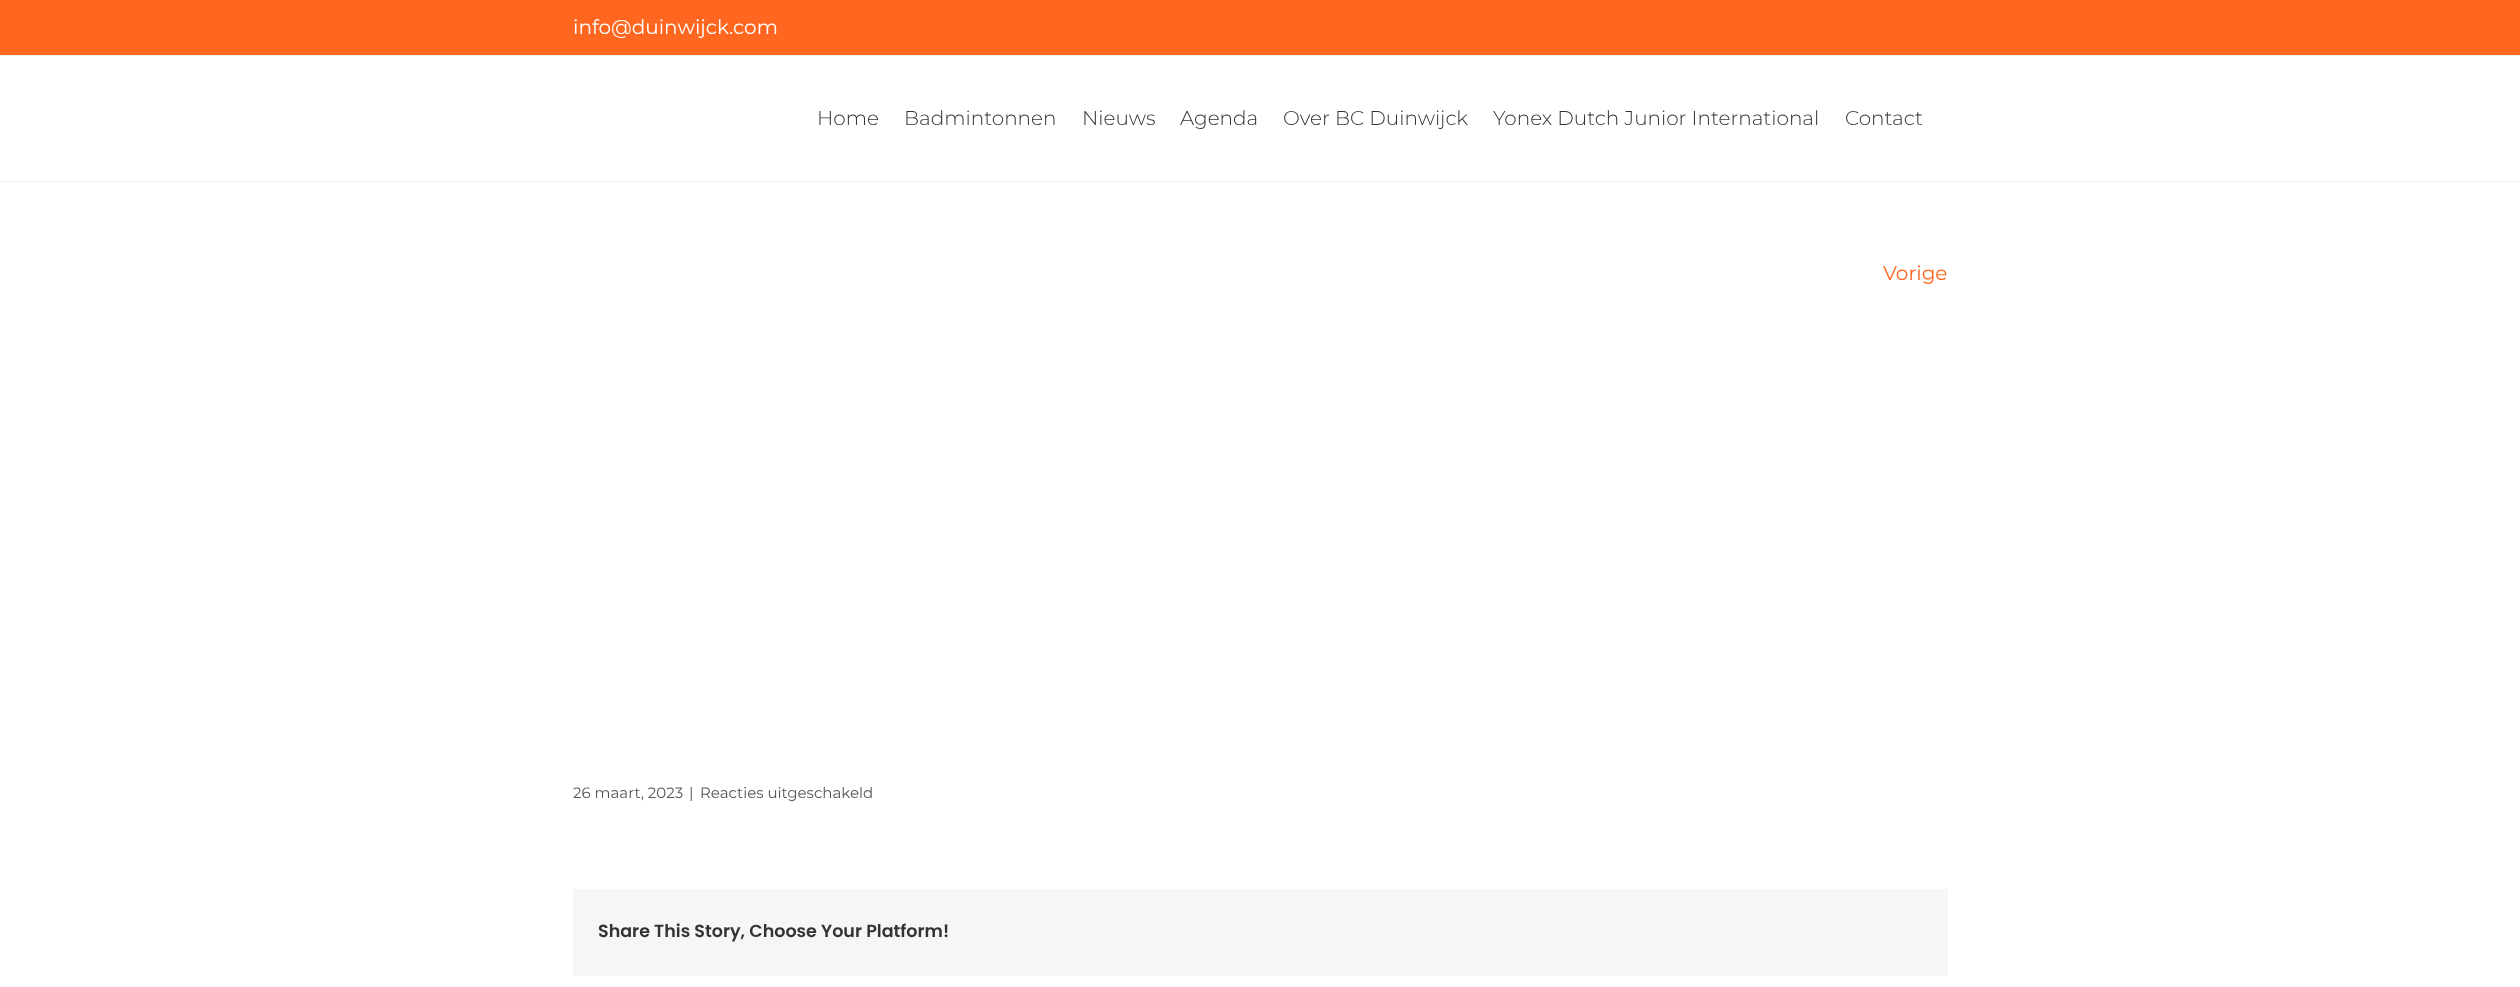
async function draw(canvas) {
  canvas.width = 2520;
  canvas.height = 987;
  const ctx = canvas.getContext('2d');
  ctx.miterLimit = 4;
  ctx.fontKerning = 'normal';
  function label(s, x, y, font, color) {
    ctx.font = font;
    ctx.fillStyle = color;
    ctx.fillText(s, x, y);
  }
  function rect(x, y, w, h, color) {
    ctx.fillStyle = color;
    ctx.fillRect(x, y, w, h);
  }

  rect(0, 0, 2520, 987, '#fff');
  rect(0, 0, 2520, 55, '#ff6720');
  rect(0, 55, 2520, 1, '#efefef');
  label('info@duinwijck.com', 573, 34, '20px Montserrat', '#fff');
  rect(0, 181, 2520, 1, '#efefef');
  label('Home', 817, 125, '300 20px Montserrat', '#333');
  label('Badmintonnen', 904, 125, '300 20px Montserrat', '#333');
  label('Nieuws', 1082, 125, '300 20px Montserrat', '#333');
  label('Agenda', 1180, 125, '300 20px Montserrat', '#333');
  label('Over BC Duinwijck', 1283, 125, '300 20px Montserrat', '#333');
  label('Yonex Dutch Junior International', 1493, 125, '300 20px Montserrat', '#333');
  label('Contact', 1845, 125, '300 20px Montserrat', '#333');
  label('Vorige', 1883, 280, '20px Montserrat', '#ff6720');
  label('26 maart, 2023', 573, 798, '15px Montserrat', '#575757');
  label('|', 689, 798, '15px Montserrat', '#575757');
  label('Reacties uitgeschakeld', 700, 798, '15px Montserrat', '#575757');
  rect(573, 889, 1375, 87, '#f6f6f6');
  label('Share This Story, Choose Your Platform!', 598, 937, '600 17.5px Poppins', '#333');
}

draw(document.querySelector('canvas'));
